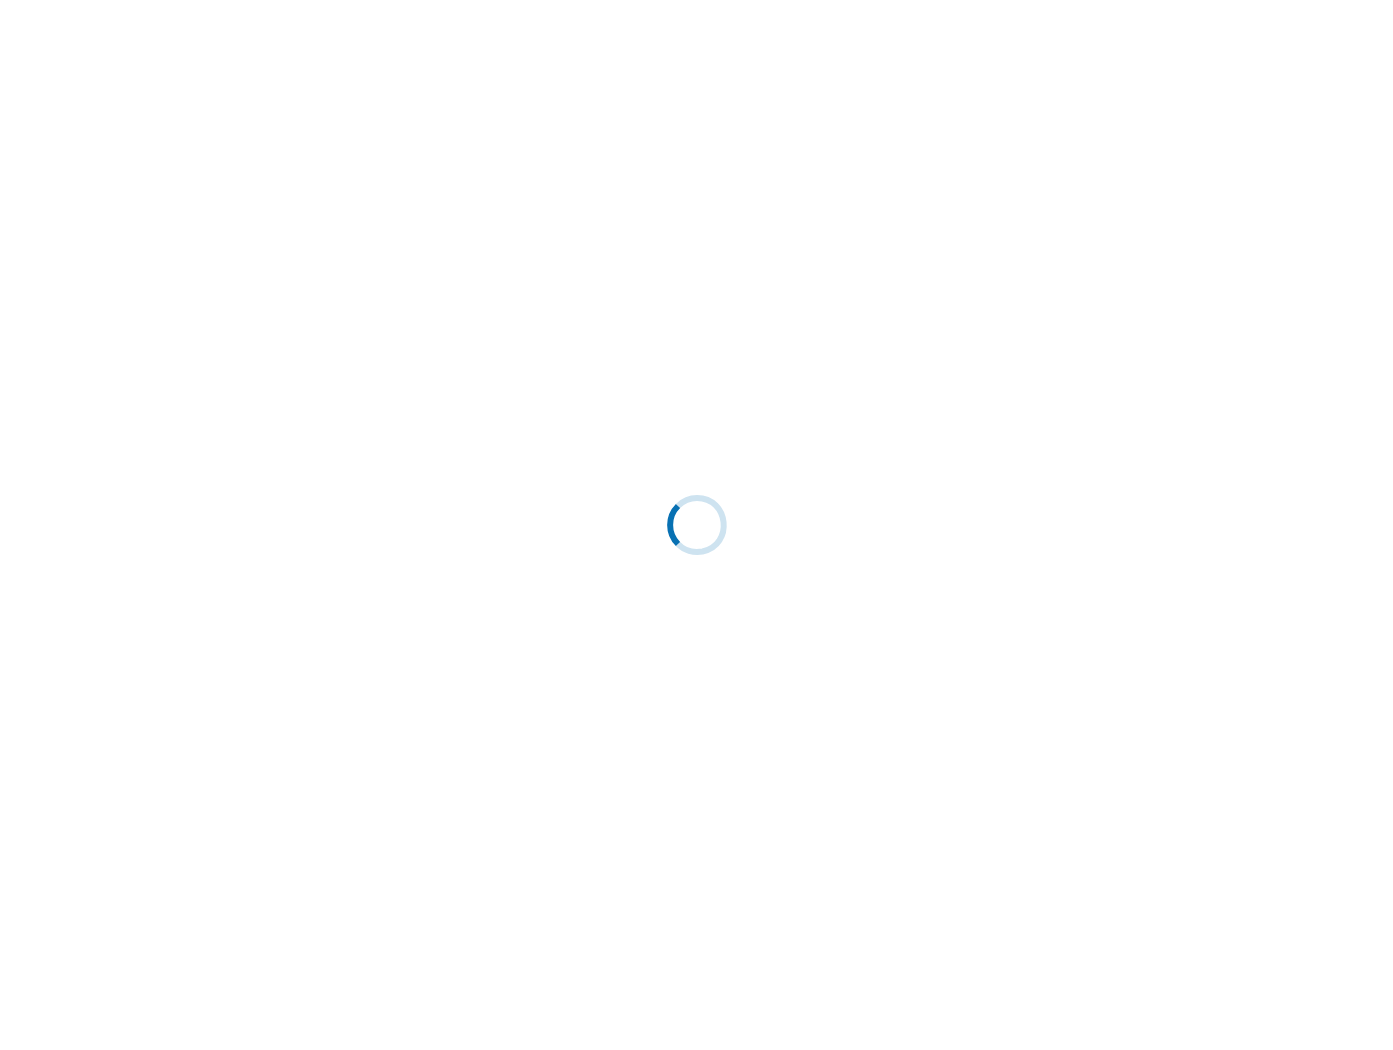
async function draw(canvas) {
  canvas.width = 1393;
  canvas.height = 1050;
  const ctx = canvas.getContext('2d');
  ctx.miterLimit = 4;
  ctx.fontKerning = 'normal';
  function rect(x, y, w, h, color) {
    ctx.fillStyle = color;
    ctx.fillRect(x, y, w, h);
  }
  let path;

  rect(0, 0, 1393, 1050, '#fff');
  path = new Path2D('M678 506C683 501 690 498 697 498C729 498 734 545 702.5 551.5C693.5 553 684 550.5 678 544');
  ctx.strokeStyle = '#cee3f0';
  ctx.lineWidth = 6;
  ctx.stroke(path);
  path = new Path2D('M678 544C667.5 533.5 667.5 516.5 678 506');
  ctx.strokeStyle = '#0871b3';
  ctx.stroke(path);
}

draw(document.querySelector('canvas'));
